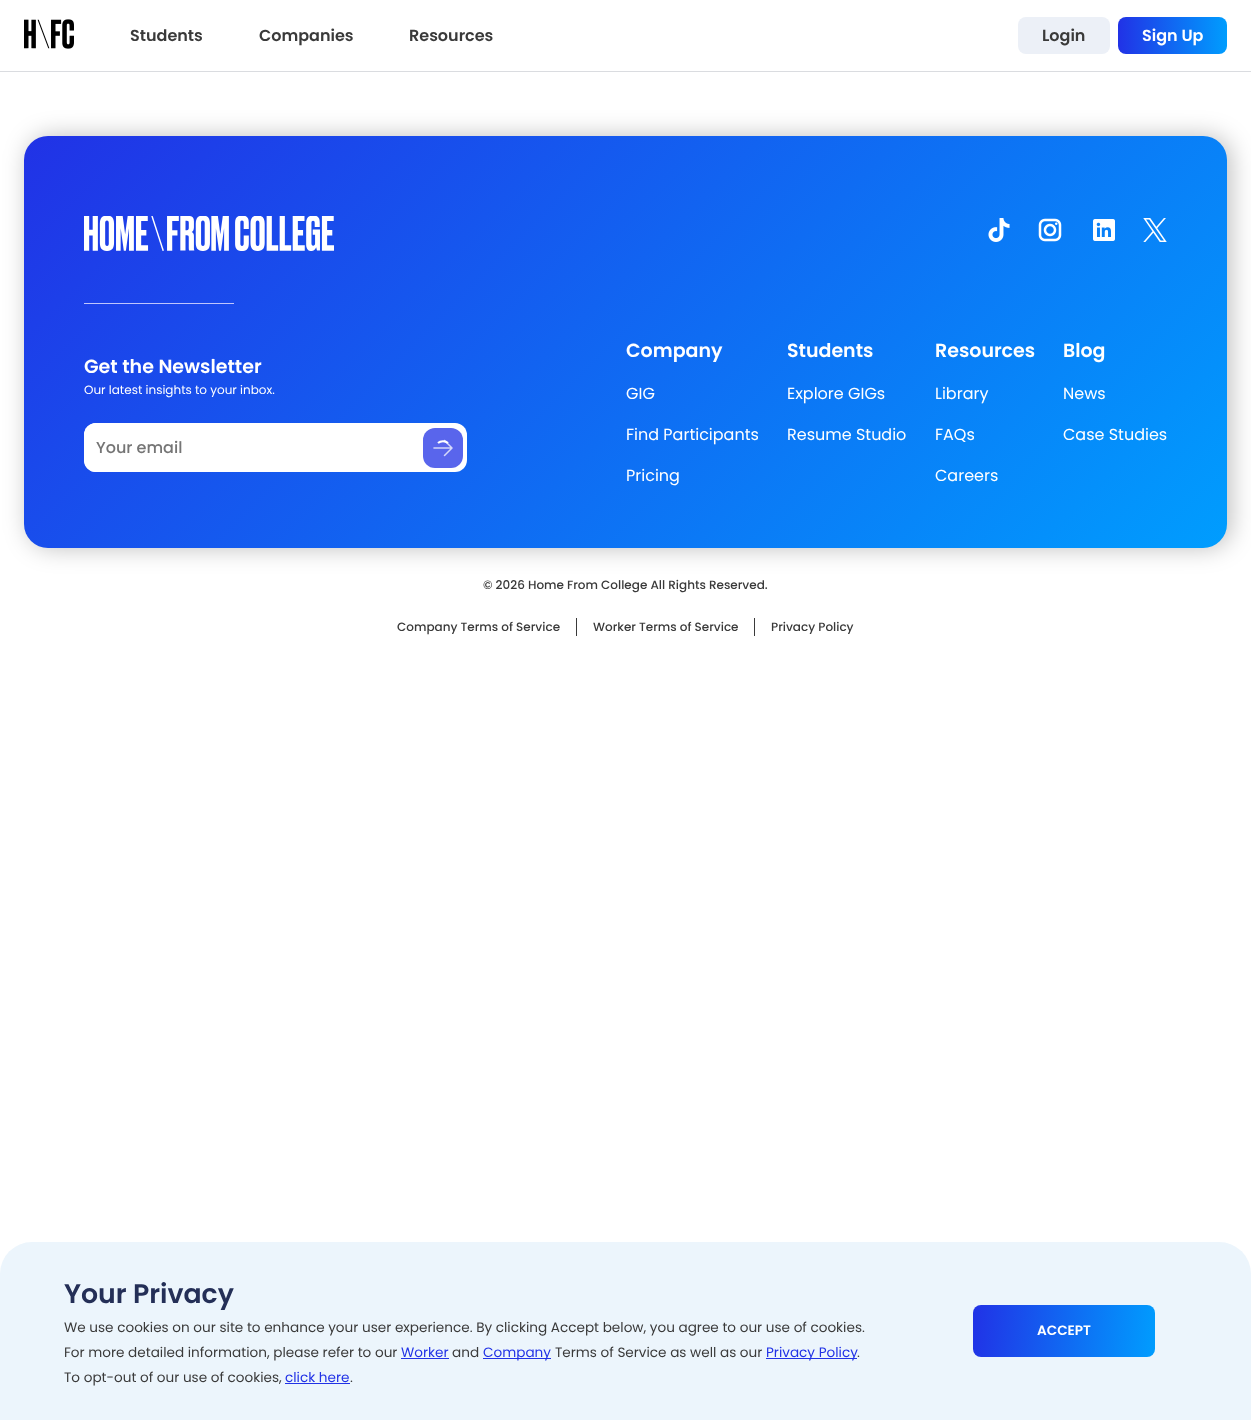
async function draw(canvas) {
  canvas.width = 1251;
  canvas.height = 1420;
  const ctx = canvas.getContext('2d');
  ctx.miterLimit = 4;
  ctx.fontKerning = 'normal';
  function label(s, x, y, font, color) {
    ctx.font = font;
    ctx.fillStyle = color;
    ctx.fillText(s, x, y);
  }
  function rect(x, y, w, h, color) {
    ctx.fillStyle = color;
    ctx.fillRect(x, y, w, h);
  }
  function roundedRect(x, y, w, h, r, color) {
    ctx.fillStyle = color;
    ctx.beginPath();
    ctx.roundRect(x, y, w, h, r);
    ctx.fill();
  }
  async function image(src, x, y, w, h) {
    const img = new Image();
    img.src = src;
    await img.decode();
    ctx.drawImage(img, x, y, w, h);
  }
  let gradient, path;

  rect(0, 0, 1251, 1420, '#fff');
  rect(0, 71, 1251, 1, '#dadce0');
  await image('assets/img1.png', 24, 19, 50, 30);
  label('Students', 130, 41, '600 16px Poppins', '#3a3a3a');
  label('Companies', 259, 41, '600 16px Poppins', '#3a3a3a');
  label('Resources', 409, 41, '600 16px Poppins', '#3a3a3a');
  roundedRect(1018, 17, 92, 37, 8, '#ecf0f7');
  label('Login', 1042, 41, '600 16px Poppins', '#3a3a3a');
  gradient = ctx.createLinearGradient(1118, 36, 1227, 36);
  gradient.addColorStop(0, '#2132e6');
  gradient.addColorStop(1, '#009dfe');
  ctx.fillStyle = gradient;
  ctx.beginPath();
  ctx.roundRect(1118, 17, 109, 37, 8);
  ctx.fill();
  label('Sign Up', 1142, 41, '600 16px Poppins', '#fff');
  ctx.fillStyle = '#00000040';
  ctx.filter = 'blur(12px)';
  ctx.beginPath();
  ctx.roundRect(28, 136, 1203, 412, 24);
  ctx.fill();
  ctx.filter = 'none';
  gradient = ctx.createLinearGradient(1029, 746, 222, -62);
  gradient.addColorStop(0, '#009dfe');
  gradient.addColorStop(1, '#2132e6');
  ctx.fillStyle = gradient;
  ctx.beginPath();
  ctx.roundRect(24, 136, 1203, 412, 24);
  ctx.fill();
  await image('assets/img2.png', 84, 216, 250, 35);
  await image('assets/img3.png', 988, 218, 22, 24);
  await image('assets/img4.png', 1038, 218, 24, 24);
  await image('assets/img5.png', 1093, 219, 22, 22);
  await image('assets/img6.png', 1143, 218, 24, 24);
  rect(84, 303, 150, 1, '#c0c6fd');
  label('Get the Newsletter', 84, 373, '600 19px Poppins', '#fff');
  label('Our latest insights to your inbox.', 84, 394, '12px Poppins', '#fff');
  roundedRect(84, 423, 383, 49, 12, '#fff');
  ctx.beginPath();
  ctx.roundRect(84, 423, 339, 49, [12, 0, 0, 12]);
  ctx.fill();
  label('Your email', 96, 453, '500 16px Poppins', '#757575');
  roundedRect(423, 428, 40, 40, 12, '#5965ec');
  await image('assets/img7.png', 433, 439, 20, 18);
  path = new Path2D('M438 443C440.5 440.5 445.5 440.5 448 443');
  ctx.strokeStyle = '#fff';
  ctx.lineWidth = 2;
  ctx.stroke(path);
  label('Company', 626, 357, '600 19px Poppins', '#fff');
  label('GIG', 626, 399, '16px Poppins', '#fff');
  label('Find Participants', 626, 440, '16px Poppins', '#fff');
  label('Pricing', 626, 481, '16px Poppins', '#fff');
  label('Students', 787, 357, '600 19px Poppins', '#fff');
  label('Explore GIGs', 787, 399, '16px Poppins', '#fff');
  label('Resume Studio', 787, 440, '16px Poppins', '#fff');
  label('Resources', 935, 357, '600 19px Poppins', '#fff');
  label('Library', 935, 399, '16px Poppins', '#fff');
  label('FAQs', 935, 440, '16px Poppins', '#fff');
  label('Careers', 935, 481, '16px Poppins', '#fff');
  label('Blog', 1063, 357, '600 19px Poppins', '#fff');
  label('News', 1063, 399, '16px Poppins', '#fff');
  label('Case Studies', 1063, 440, '16px Poppins', '#fff');
  label('© 2026 Home From College All Rights Reserved.', 483, 589, '500 12px Poppins', '#3a3a3a');
  label('Company Terms of Service', 397, 631, '500 12px Poppins', '#3a3a3a');
  rect(576, 618, 1, 18, '#3a3a3a');
  label('Worker Terms of Service', 593, 631, '500 12px Poppins', '#3a3a3a');
  rect(754, 618, 1, 18, '#3a3a3a');
  label('Privacy Policy', 771, 631, '500 12px Poppins', '#3a3a3a');
  ctx.fillStyle = '#ecf5fc';
  ctx.beginPath();
  ctx.roundRect(0, 1242, 1251, 178, [32, 32, 0, 0]);
  ctx.fill();
  label('Your Privacy', 64, 1303, '600 26.75px Poppins', '#242f57');
  label('We use cookies on our site to enhance your user experience. By clicking Accept below, you agree to our use of cookies.', 64, 1332, '13.6px Poppins', '#3a3a3a');
  label('For more detailed information, please refer to our', 64, 1357, '13.6px Poppins', '#3a3a3a');
  label('Worker', 401, 1357, '13.6px Poppins', '#2132e6');
  rect(401, 1358, 48, 1, '#2132e6');
  label('and', 452, 1357, '13.6px Poppins', '#3a3a3a');
  rect(483, 1358, 68, 1, '#2132e6');
  label('Company', 483, 1357, '13.6px Poppins', '#2132e6');
  label('Terms of Service as well as our', 555, 1357, '13.6px Poppins', '#3a3a3a');
  rect(766, 1358, 91, 1, '#2132e6');
  label('Privacy Policy', 766, 1357, '13.6px Poppins', '#2132e6');
  label('.', 857, 1357, '13.6px Poppins', '#3a3a3a');
  label('To opt-out of our use of cookies,', 64, 1382, '13.6px Poppins', '#3a3a3a');
  label('click here', 285, 1382, '13.6px Poppins', '#2132e6');
  rect(285, 1383, 65, 1, '#2132e6');
  label('.', 350, 1382, '13.6px Poppins', '#3a3a3a');
  gradient = ctx.createLinearGradient(971, 1323, 1157, 1339);
  gradient.addColorStop(0, '#2132e6');
  gradient.addColorStop(1, '#009dfe');
  ctx.fillStyle = gradient;
  ctx.beginPath();
  ctx.roundRect(973, 1305, 182, 52, 8);
  ctx.fill();
  label('ACCEPT', 1037, 1335, '600 13.6px Poppins', '#fff');
}

draw(document.querySelector('canvas'));
